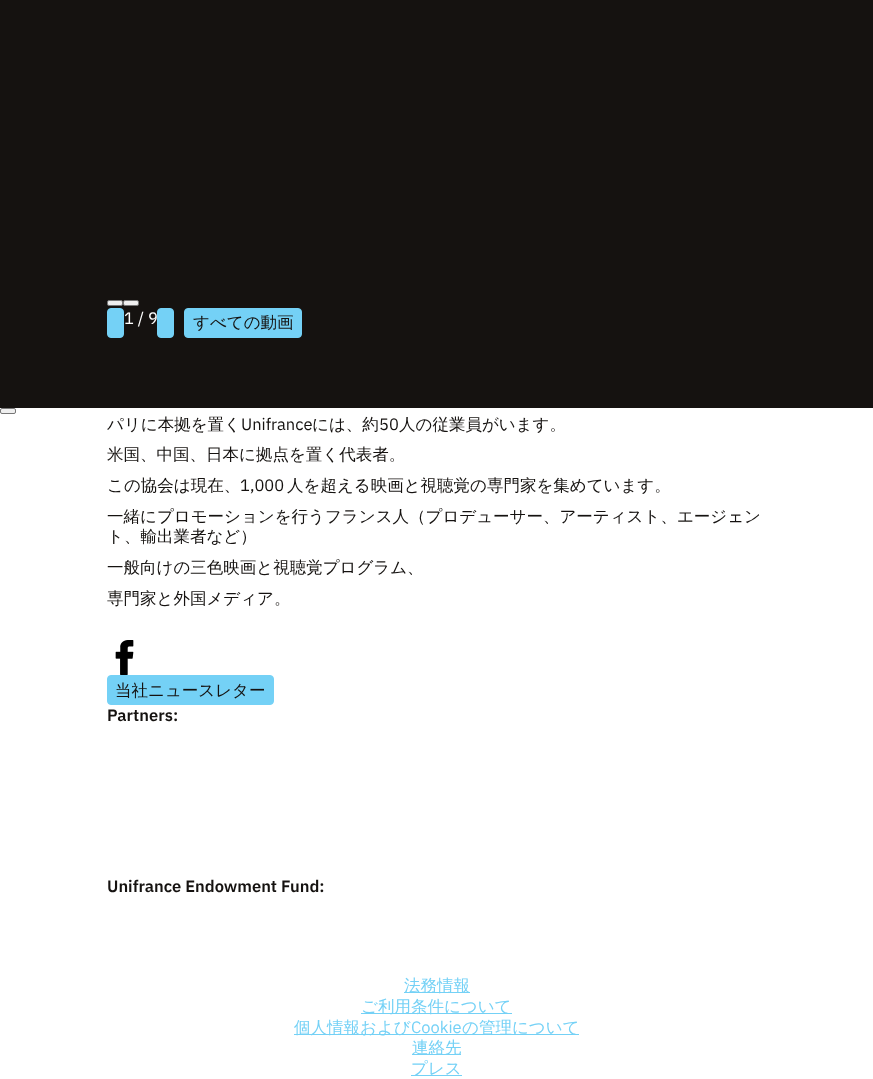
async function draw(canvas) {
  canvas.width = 873;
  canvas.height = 1079;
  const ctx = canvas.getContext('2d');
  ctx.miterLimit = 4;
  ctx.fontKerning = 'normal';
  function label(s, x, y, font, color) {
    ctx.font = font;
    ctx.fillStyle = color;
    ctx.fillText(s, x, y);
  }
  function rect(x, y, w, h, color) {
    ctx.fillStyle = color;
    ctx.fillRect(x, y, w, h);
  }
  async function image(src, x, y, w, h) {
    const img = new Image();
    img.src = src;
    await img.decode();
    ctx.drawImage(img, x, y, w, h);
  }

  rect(0, 0, 873, 1079, '#fff');
  rect(0, 0, 873, 408, '#151210');
  ctx.fillStyle = '#efefef';
  ctx.beginPath();
  ctx.roundRect(107.5, 300.5, 15, 5, 1.5);
  ctx.fill();
  ctx.strokeStyle = '#767676';
  ctx.stroke();
  ctx.beginPath();
  ctx.roundRect(123.5, 300.5, 15, 5, 1.5);
  ctx.fill();
  ctx.stroke();
  ctx.fillStyle = '#74d1f6';
  ctx.beginPath();
  ctx.roundRect(107.5, 308.5, 16, 29, 3.5);
  ctx.fill();
  ctx.strokeStyle = '#74d1f6';
  ctx.stroke();
  label('1 / 9', 124, 324, '16.5px IBM Plex Sans', '#fff');
  ctx.fillStyle = '#74d1f6';
  ctx.beginPath();
  ctx.roundRect(157.5, 308.5, 16, 29, 3.5);
  ctx.fill();
  ctx.stroke();
  ctx.beginPath();
  ctx.roundRect(184.5, 308.5, 117, 29, 3.5);
  ctx.fill();
  ctx.stroke();
  label('すべての動画', 193, 328, '500 16.5px WenQuanYi Zen Hei', '#151210');
  ctx.fillStyle = '#efefef';
  ctx.beginPath();
  ctx.roundRect(0.5, 408.5, 15, 5, 1.5);
  ctx.fill();
  ctx.strokeStyle = '#767676';
  ctx.stroke();
  label('パリに本拠を置く', 107, 430, '500 16.5px WenQuanYi Zen Hei', '#151210');
  label('Unifrance', 241, 430, '16.5px IBM Plex Sans', '#151210');
  label('には、約', 312, 430, '500 16.5px WenQuanYi Zen Hei', '#151210');
  label('50', 379, 430, '16.5px IBM Plex Sans', '#151210');
  label('人の従業員がいます。', 399, 430, '500 16.5px WenQuanYi Zen Hei', '#151210');
  label('米国、中国、日本に拠点を置く代表者。', 107, 460, '500 16.5px WenQuanYi Zen Hei', '#151210');
  label('この協会は現在、', 107, 491, '500 16.5px WenQuanYi Zen Hei', '#151210');
  label('1,000', 240, 491, '16.5px IBM Plex Sans', '#151210');
  label('人を超える映画と視聴覚の専門家を集めています。', 287, 491, '500 16.5px WenQuanYi Zen Hei', '#151210');
  label('一緒にプロモーションを行うフランス人（プロデューサー、アーティスト、エージェン', 107, 522, '500 16.5px WenQuanYi Zen Hei', '#151210');
  label('ト、輸出業者など）', 107, 542, '500 16.5px WenQuanYi Zen Hei', '#151210');
  label('一般向けの三色映画と視聴覚プログラム、', 107, 573, '500 16.5px WenQuanYi Zen Hei', '#151210');
  label('専門家と外国メディア。', 107, 604, '500 16.5px WenQuanYi Zen Hei', '#151210');
  await image('assets/img1.png', 115, 640, 19, 35);
  ctx.fillStyle = '#74d1f6';
  ctx.beginPath();
  ctx.roundRect(107.5, 675.5, 166, 29, 3.5);
  ctx.fill();
  ctx.strokeStyle = '#74d1f6';
  ctx.stroke();
  label('当社ニュースレター', 115, 696, '500 16.5px WenQuanYi Zen Hei', '#151210');
  label('Partners:', 107, 721, '600 16.5px IBM Plex Sans', '#151210');
  label('Unifrance Endowment Fund:', 107, 892, '600 16.5px IBM Plex Sans', '#151210');
  rect(404, 992, 66, 1, '#74d1f6');
  label('法務情報', 404, 991, '500 16.5px WenQuanYi Zen Hei', '#74d1f6');
  rect(361, 1013, 151, 1, '#74d1f6');
  label('ご利用条件について', 361, 1012, '500 16.5px WenQuanYi Zen Hei', '#74d1f6');
  rect(294, 1034, 285, 1, '#74d1f6');
  label('個人情報および', 294, 1033, '500 16.5px WenQuanYi Zen Hei', '#74d1f6');
  label('Cookie', 411, 1033, '16.5px IBM Plex Sans', '#74d1f6');
  label('の管理について', 462, 1033, '500 16.5px WenQuanYi Zen Hei', '#74d1f6');
  rect(412, 1054, 49, 1, '#74d1f6');
  label('連絡先', 412, 1053, '500 16.5px WenQuanYi Zen Hei', '#74d1f6');
  rect(411, 1075, 51, 1, '#74d1f6');
  label('プレス', 411, 1074, '500 16.5px WenQuanYi Zen Hei', '#74d1f6');
}

draw(document.querySelector('canvas'));
